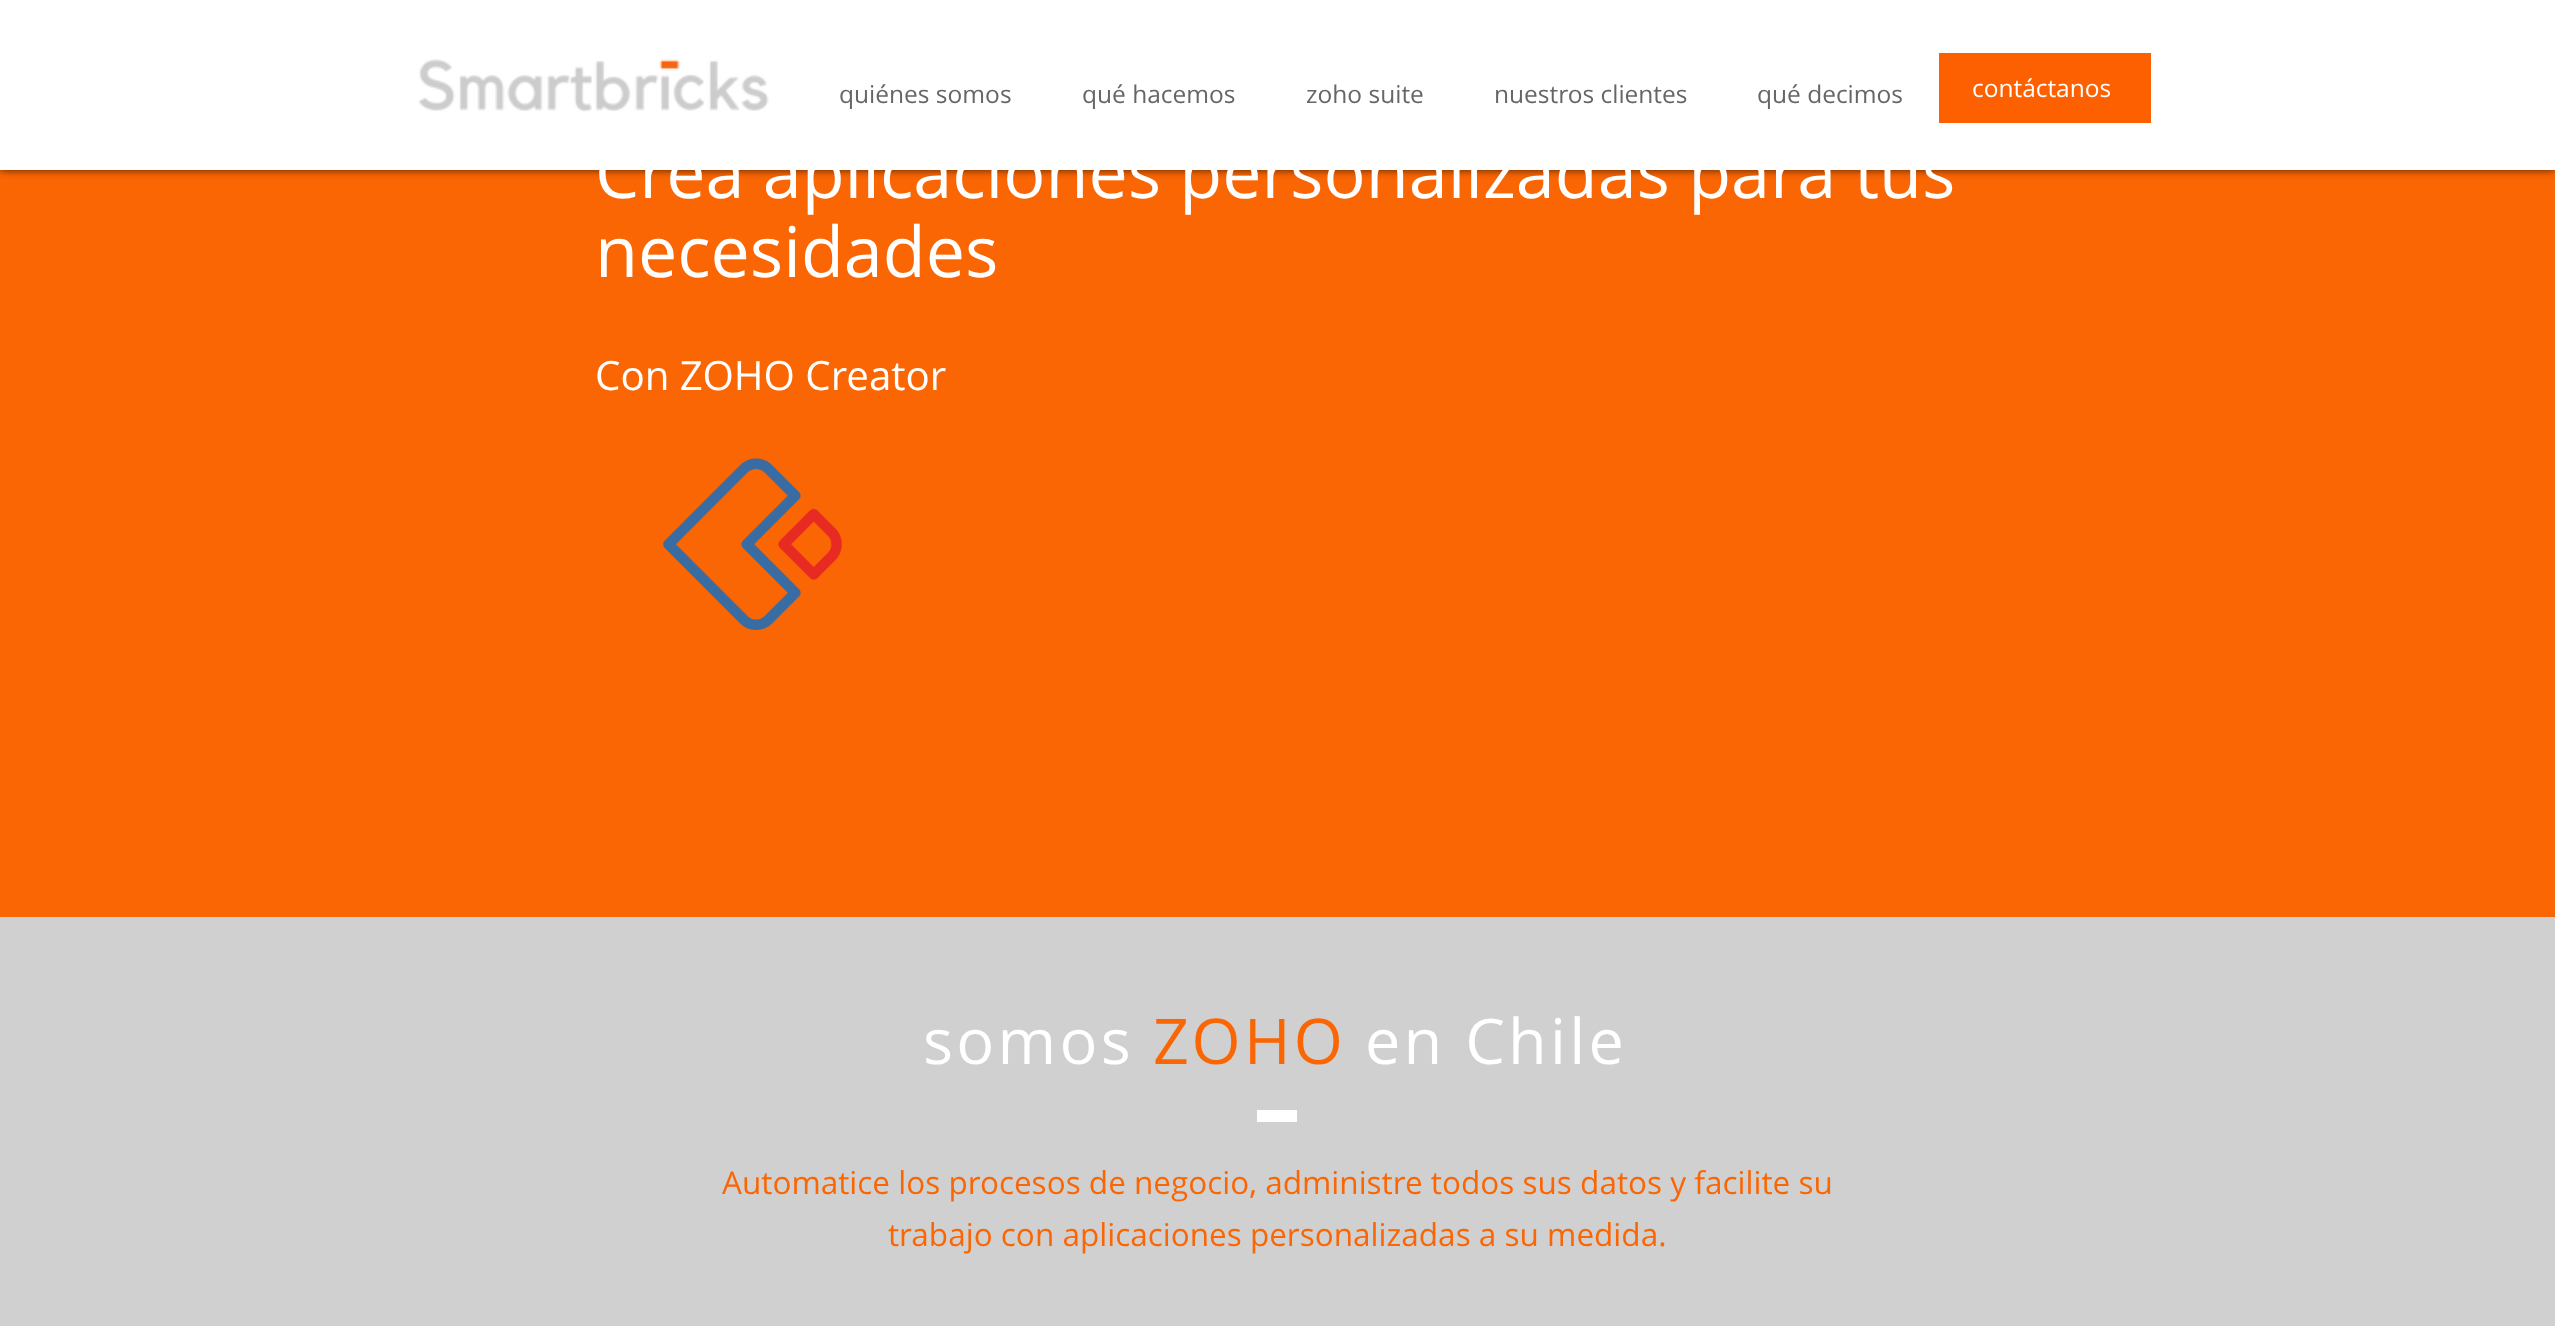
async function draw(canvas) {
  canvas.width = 2555;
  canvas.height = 1326;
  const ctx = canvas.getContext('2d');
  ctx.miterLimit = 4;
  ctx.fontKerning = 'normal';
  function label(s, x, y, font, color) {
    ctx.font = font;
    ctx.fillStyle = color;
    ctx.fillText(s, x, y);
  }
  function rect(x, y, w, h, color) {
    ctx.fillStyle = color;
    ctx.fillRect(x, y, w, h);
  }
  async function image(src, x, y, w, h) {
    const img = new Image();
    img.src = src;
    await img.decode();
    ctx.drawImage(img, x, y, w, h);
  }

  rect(0, 0, 2555, 1326, '#fb6604');
  ctx.fillStyle = '#000000b3';
  ctx.filter = 'blur(4.5px)';
  ctx.beginPath();
  ctx.rect(0, 0, 2555, 170);
  ctx.fill();
  ctx.filter = 'none';
  rect(0, 0, 2555, 170, '#fff');
  await image('assets/img1.png', 418, 59, 351, 53);
  label('quiénes somos', 839, 103, '24.5px Open Sans', '#666');
  label('qué hacemos', 1082, 103, '24.5px Open Sans', '#666');
  label('zoho suite', 1306, 103, '24.5px Open Sans', '#666');
  label('nuestros clientes', 1494, 103, '24.5px Open Sans', '#666');
  label('qué decimos', 1757, 103, '24.5px Open Sans', '#666');
  rect(1939, 53, 212, 70, '#fc6000');
  label('contáctanos', 1972, 97, '24.5px Open Sans', '#fff');
  label('Crea aplicaciones personalizadas para tus', 595, 198, '70px Open Sans', '#fff');
  label('necesidades', 595, 277, '70px Open Sans', '#fff');
  label('Con ZOHO Creator', 595, 390, '40.25px Open Sans', '#fff');
  await image('assets/img2.png', 663, 458, 179, 172);
  rect(0, 917, 2555, 409, '#d0d0d0');
  ctx.letterSpacing = '3.25px';
  label('somos', 923, 1064, '63px Open Sans', '#fff');
  label('ZOHO', 1153, 1064, '63px Open Sans', '#fb6604');
  label('en Chile', 1365, 1064, '63px Open Sans', '#fff');
  rect(1257, 1110, 40, 12, '#fff');
  ctx.letterSpacing = '0px';
  label('Automatice los procesos de negocio, administre todos sus datos y facilite su', 722, 1194, '31.5px Open Sans', '#fb6604');
  label('trabajo con aplicaciones personalizadas a su medida.', 888, 1246, '31.5px Open Sans', '#fb6604');
}

draw(document.querySelector('canvas'));
